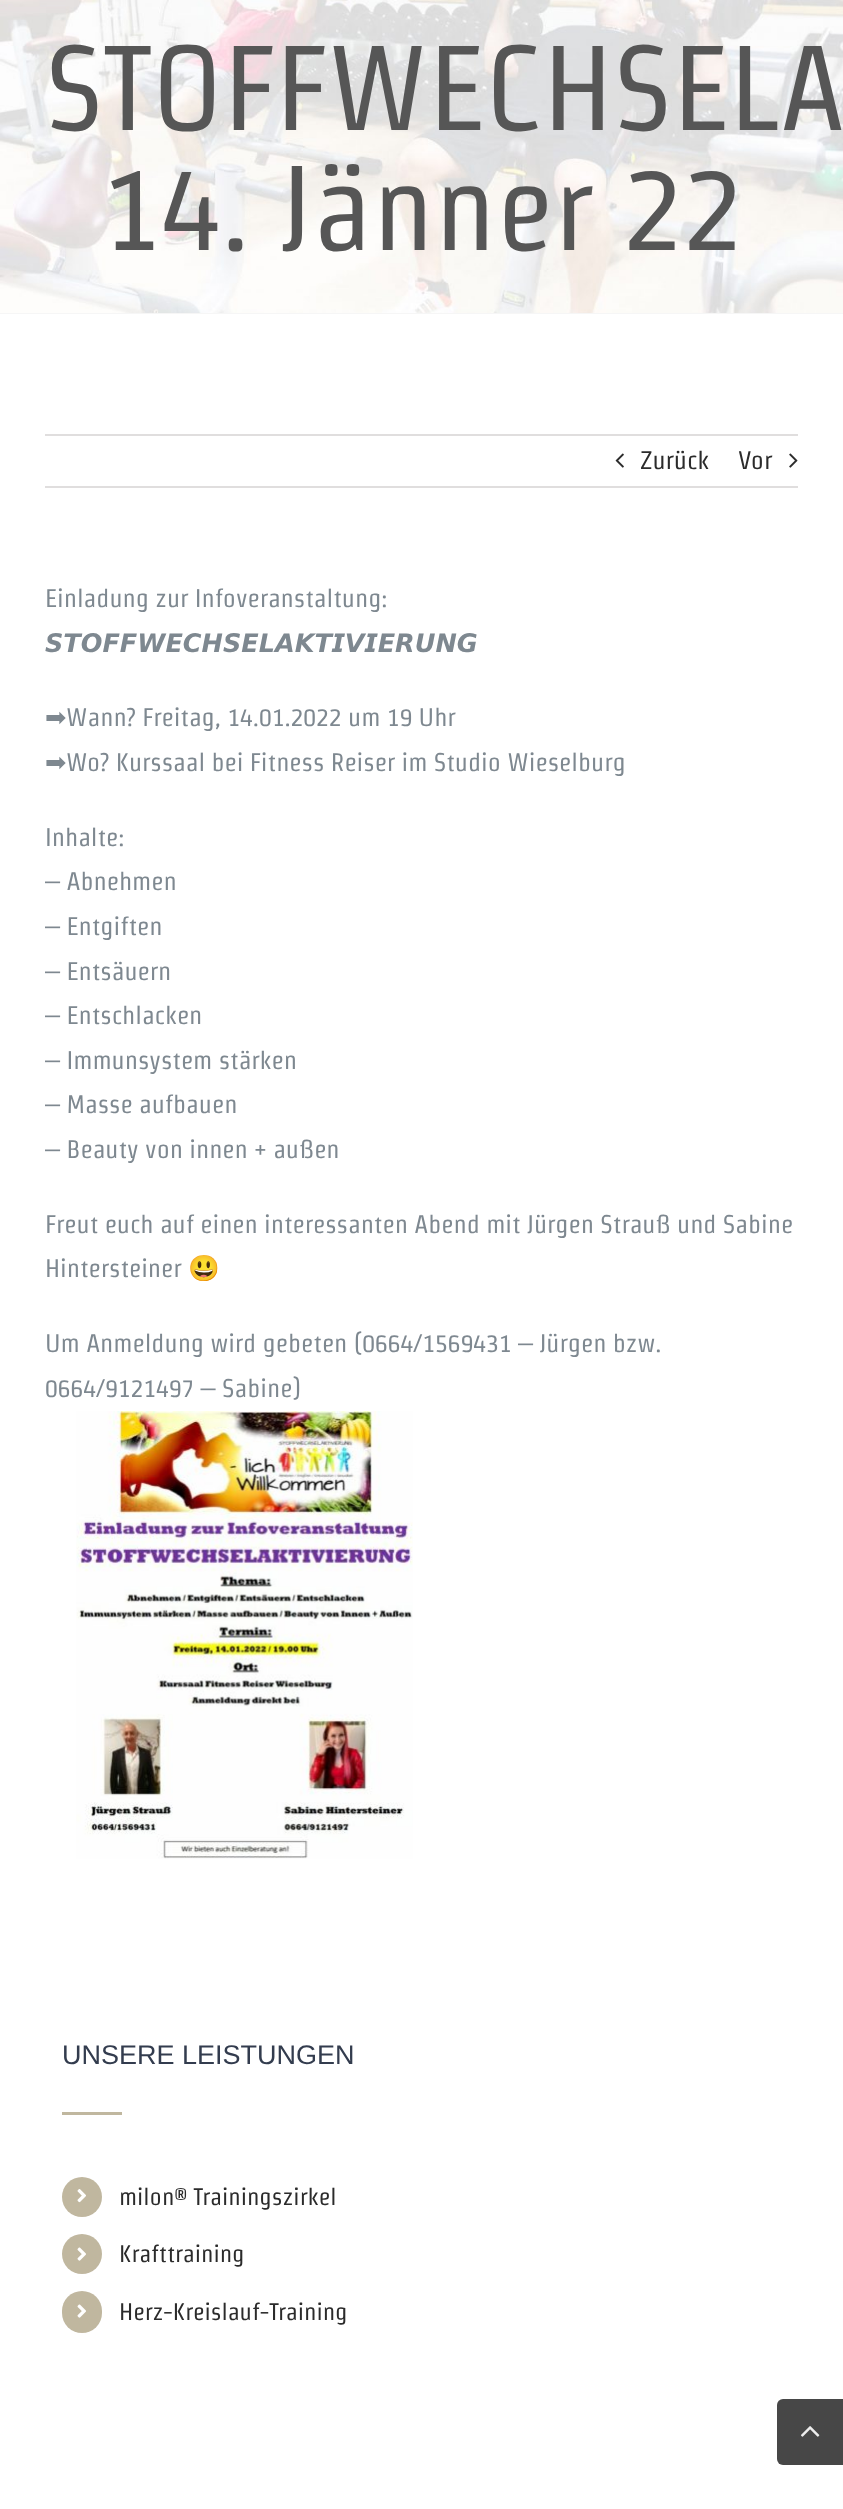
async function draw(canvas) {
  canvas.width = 843;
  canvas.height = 2509;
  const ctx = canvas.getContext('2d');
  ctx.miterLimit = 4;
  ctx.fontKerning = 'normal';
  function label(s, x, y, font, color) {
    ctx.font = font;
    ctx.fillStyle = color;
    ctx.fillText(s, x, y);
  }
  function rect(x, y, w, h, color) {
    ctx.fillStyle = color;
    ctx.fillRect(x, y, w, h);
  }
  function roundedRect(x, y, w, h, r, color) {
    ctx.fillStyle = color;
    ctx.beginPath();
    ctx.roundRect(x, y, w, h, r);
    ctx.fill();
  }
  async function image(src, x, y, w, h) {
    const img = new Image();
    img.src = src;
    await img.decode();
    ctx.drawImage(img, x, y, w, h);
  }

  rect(0, 0, 843, 2509, '#fff');
  rect(0, 313, 843, 1, '#f6f6f6');
  await image('assets/img1.png', 0, 0, 843, 313);
  label('STOFFWECHSELA', 45, 130, '120px Strait', '#565656');
  label('14. Jänner 22', 101, 250, '120px Strait', '#565656');
  rect(45, 434, 753, 2, '#e0dede');
  rect(45, 486, 753, 2, '#e0dede');
  await image('assets/img2.png', 615, 453, 9, 15);
  label('Zurück', 640, 469, '25.5px Strait', '#2b2b2b');
  label('Vor', 738, 469, '25.5px Strait', '#2b2b2b');
  await image('assets/img3.png', 789, 453, 9, 15);
  label('Einladung zur Infoveranstaltung:', 45, 607, '25.5px Strait', '#7e8890');
  label('𝙎𝙏𝙊𝙁𝙁𝙒𝙀𝘾𝙃𝙎𝙀𝙇𝘼𝙆𝙏𝙄𝙑𝙄𝙀𝙍𝙐𝙉𝙂', 45, 652, 'italic bold 25.5px DejaVu Sans', '#7e8890');
  label('➡', 45, 726, '25.5px DejaVu Sans', '#7e8890');
  label('Wann? Freitag, 14.01.2022 um 19 Uhr', 66, 726, '25.5px Strait', '#7e8890');
  label('➡', 45, 771, '25.5px DejaVu Sans', '#7e8890');
  label('Wo? Kurssaal bei Fitness Reiser im Studio Wieselburg', 66, 771, '25.5px Strait', '#7e8890');
  label('Inhalte:', 45, 846, '25.5px Strait', '#7e8890');
  label('– Abnehmen', 45, 890, '25.5px Strait', '#7e8890');
  label('– Entgiften', 45, 935, '25.5px Strait', '#7e8890');
  label('– Entsäuern', 45, 980, '25.5px Strait', '#7e8890');
  label('– Entschlacken', 45, 1024, '25.5px Strait', '#7e8890');
  label('– Immunsystem stärken', 45, 1069, '25.5px Strait', '#7e8890');
  label('– Masse aufbauen', 45, 1113, '25.5px Strait', '#7e8890');
  label('– Beauty von innen + außen', 45, 1158, '25.5px Strait', '#7e8890');
  label('Freut euch auf einen interessanten Abend mit Jürgen Strauß und Sabine', 45, 1233, '25.5px Strait', '#7e8890');
  label('Hintersteiner', 45, 1277, '25.5px Strait', '#7e8890');
  label('😃', 188, 1277, '25.5px Noto Color Emoji', '#7e8890');
  label('Um Anmeldung wird gebeten (0664/1569431 – Jürgen bzw.', 45, 1352, '25.5px Strait', '#7e8890');
  label('0664/9121497 – Sabine)', 45, 1397, '25.5px Strait', '#7e8890');
  await image('assets/img4.png', 76, 1411, 337, 448);
  label('UNSERE LEISTUNGEN', 62, 2064, '27px Liberation Sans', '#333c4e');
  rect(62, 2112, 60, 3, '#c0b79f');
  ctx.beginPath();
  ctx.arc(82, 2197, 20, 0, 2 * Math.PI);
  ctx.fill();
  await image('assets/img5.png', 77, 2189, 9, 14);
  label('milon® Trainingszirkel', 119, 2205, '24px Strait', '#2b2b2b');
  ctx.fillStyle = '#c0b79f';
  ctx.beginPath();
  ctx.arc(82, 2254, 20, 0, 2 * Math.PI);
  ctx.fill();
  await image('assets/img6.png', 77, 2247, 9, 14);
  label('Krafttraining', 119, 2262, '24px Strait', '#2b2b2b');
  roundedRect(62, 2291, 40, 42, 20, '#c0b79f');
  await image('assets/img6.png', 77, 2304, 9, 14);
  label('Herz-Kreislauf-Training', 119, 2320, '24px Strait', '#2b2b2b');
  ctx.fillStyle = '#474747';
  ctx.beginPath();
  ctx.roundRect(777, 2399, 66, 66, [6, 0, 0, 6]);
  ctx.fill();
  await image('assets/img7.png', 801, 2426, 19, 11);
}

draw(document.querySelector('canvas'));
